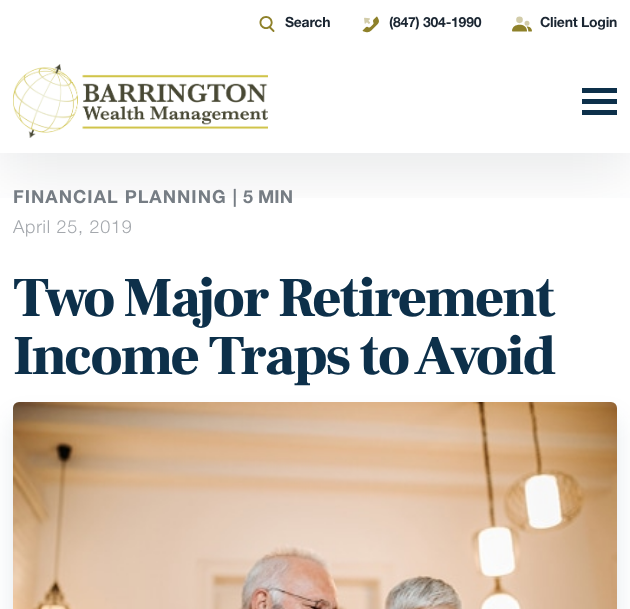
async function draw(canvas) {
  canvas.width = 630;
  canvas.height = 609;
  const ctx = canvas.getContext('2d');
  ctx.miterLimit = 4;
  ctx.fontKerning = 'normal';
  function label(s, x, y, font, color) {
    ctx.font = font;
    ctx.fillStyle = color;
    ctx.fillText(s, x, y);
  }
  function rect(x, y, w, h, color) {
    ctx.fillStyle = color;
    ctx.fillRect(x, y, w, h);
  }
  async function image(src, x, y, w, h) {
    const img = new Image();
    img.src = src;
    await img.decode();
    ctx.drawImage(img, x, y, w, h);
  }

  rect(0, 0, 630, 609, '#fff');
  ctx.save();
  ctx.beginPath();
  ctx.rect(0, 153, 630, 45);
  ctx.clip();
  ctx.fillStyle = '#1b26321a';
  ctx.filter = 'blur(30px)';
  ctx.beginPath();
  ctx.rect(0, 20, 630, 153);
  ctx.fill();
  ctx.filter = 'none';
  ctx.restore();
  await image('assets/img1.png', 259, 16, 16, 16);
  ctx.letterSpacing = '-0.25px';
  label('Search', 285, 27, 'bold 14px Helvetica Neue', '#1b2632');
  await image('assets/img2.png', 362, 16, 17, 17);
  label('(847) 304-1990', 389, 27, 'bold 14px Helvetica Neue', '#1b2632');
  await image('assets/img3.png', 512, 16, 20, 16);
  label('Client Login', 540, 27, 'bold 14px Helvetica Neue', '#1b2632');
  await image('assets/img4.png', 13, 64, 255, 74);
  rect(582, 88, 35, 5, '#0d304a');
  rect(582, 99, 35, 5, '#0d304a');
  rect(582, 110, 35, 5, '#0d304a');
  ctx.letterSpacing = '1px';
  label('FINANCIAL PLANNING |', 13, 203, 'bold 18px Helvetica Neue', '#767d84');
  ctx.letterSpacing = '0px';
  label('5 MIN', 243, 203, 'bold 18px Helvetica Neue', '#767d84');
  ctx.letterSpacing = '0.75px';
  label('April 25, 2019', 13, 233, '300 18px Helvetica Neue', '#a4a8ad');
  ctx.letterSpacing = '-1.6px';
  label('Two Major Retirement', 13, 316, '900 56px Frank Ruhl Libre', '#0d304a');
  label('Income Traps to Avoid', 13, 374, '900 56px Frank Ruhl Libre', '#0d304a');
  ctx.fillStyle = '#0d304a1a';
  ctx.filter = 'blur(12px)';
  ctx.beginPath();
  ctx.roundRect(13, 418, 604, 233, 6);
  ctx.fill();
  ctx.filter = 'none';
  await image('assets/img5.png', 13, 402, 604, 207);
}

draw(document.querySelector('canvas'));
